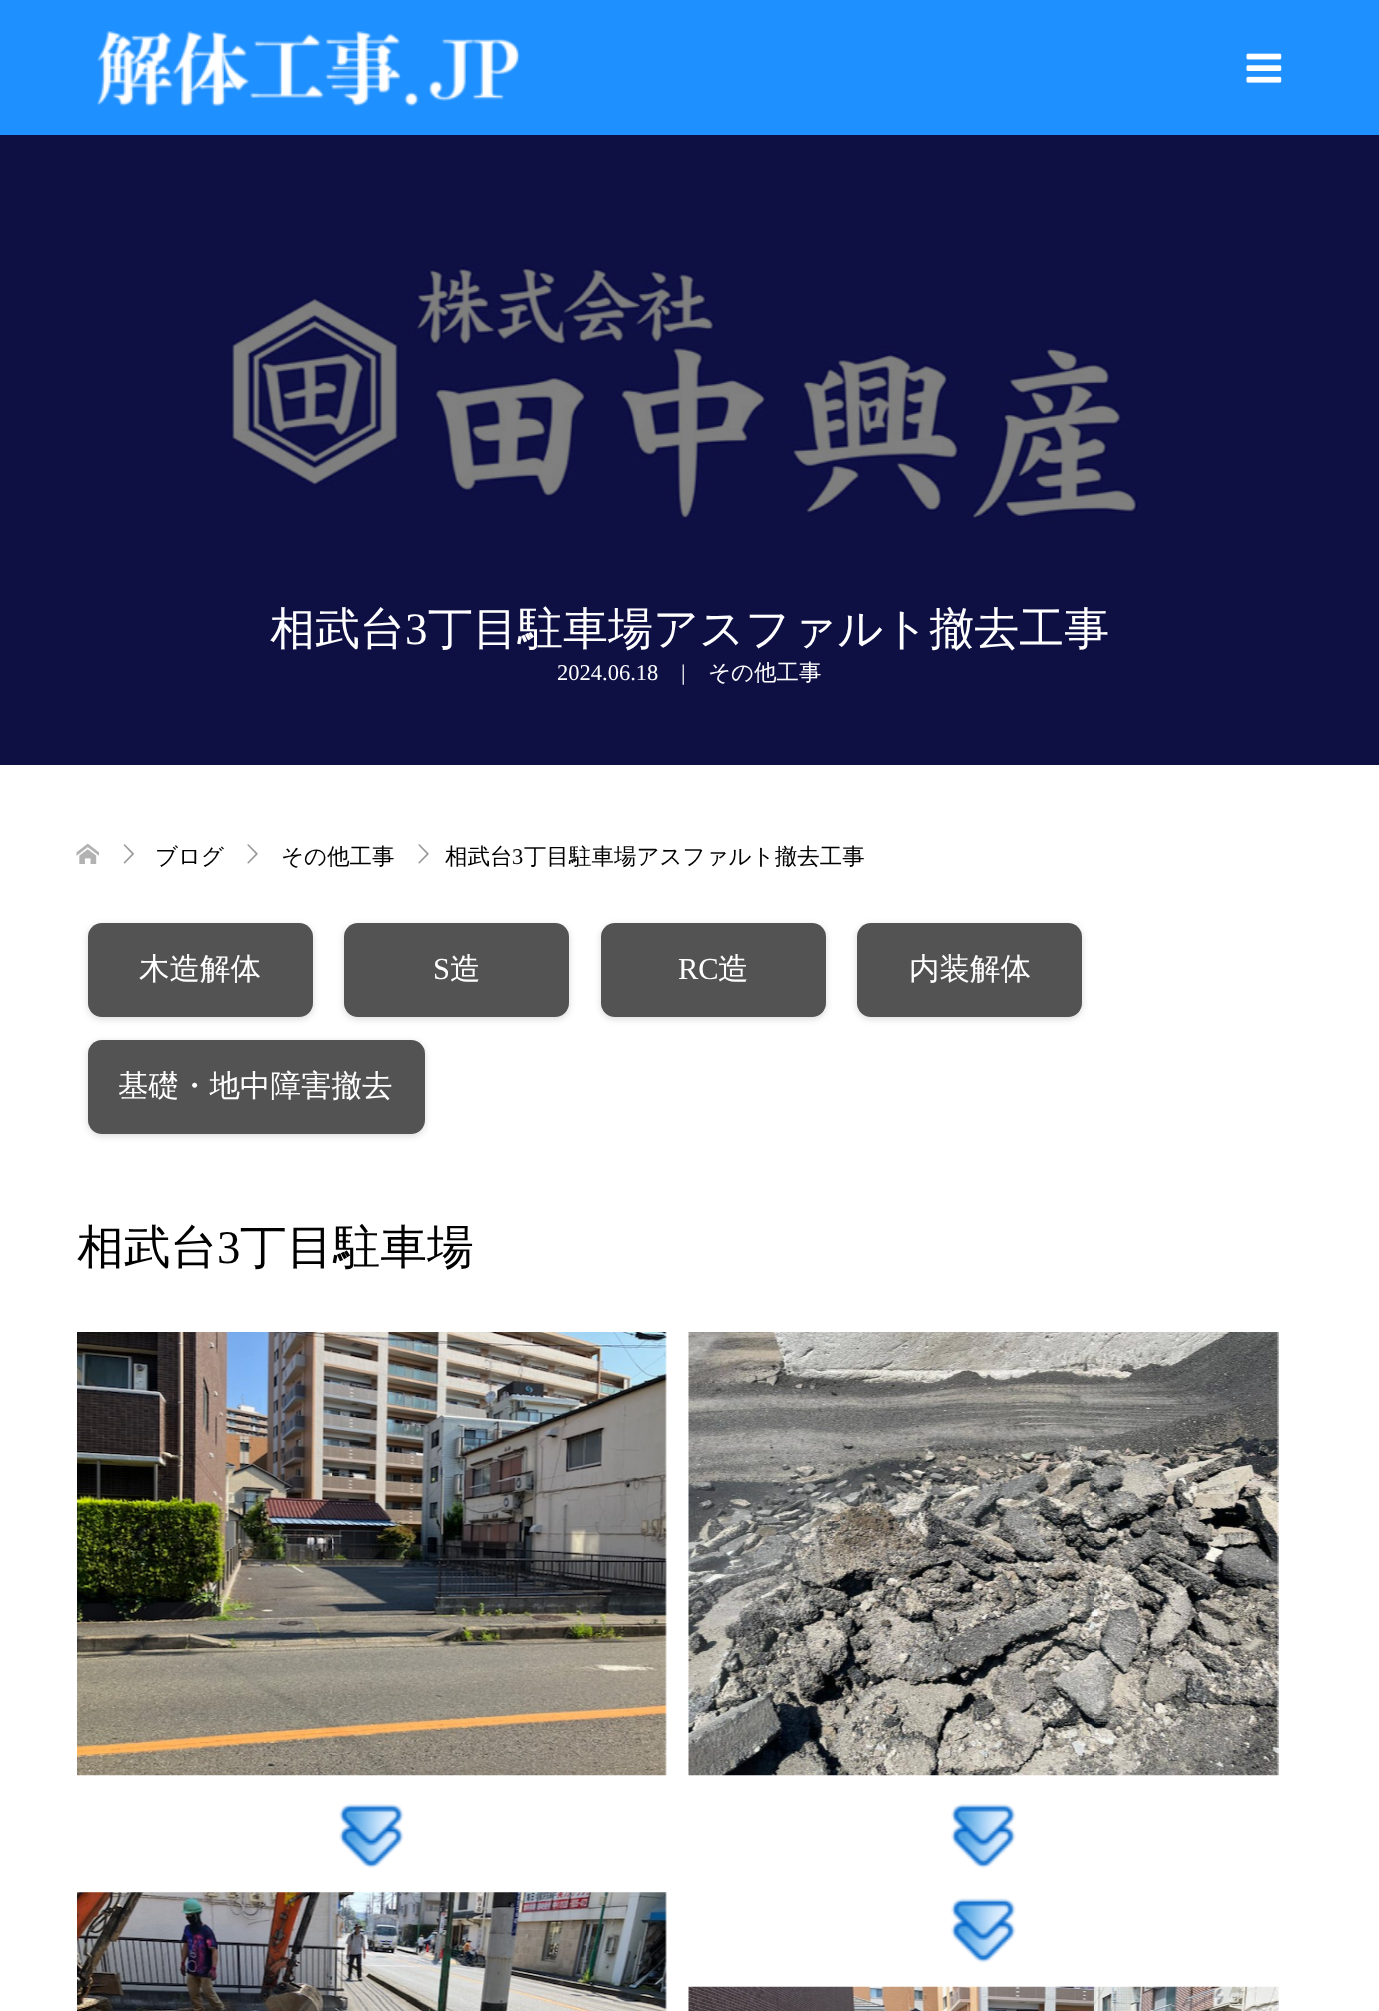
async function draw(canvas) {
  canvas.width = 1379;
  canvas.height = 2011;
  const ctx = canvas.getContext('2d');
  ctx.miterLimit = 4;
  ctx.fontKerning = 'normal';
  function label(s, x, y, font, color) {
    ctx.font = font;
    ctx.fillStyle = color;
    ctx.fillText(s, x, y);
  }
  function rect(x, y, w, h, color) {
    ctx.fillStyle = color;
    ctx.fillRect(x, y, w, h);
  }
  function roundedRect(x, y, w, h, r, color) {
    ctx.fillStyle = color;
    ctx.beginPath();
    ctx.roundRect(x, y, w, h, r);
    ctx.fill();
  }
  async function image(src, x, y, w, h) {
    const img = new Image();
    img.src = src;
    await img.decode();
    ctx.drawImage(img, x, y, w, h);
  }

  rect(0, 0, 1379, 2011, '#fff');
  await image('assets/img1.png', 0, 135, 1379, 630);
  rect(0, 0, 1379, 135, '#1e90ff');
  await image('assets/img2.png', 97, 31, 423, 75);
  await image('assets/img3.png', 1246, 53, 36, 30);
  label('相武台', 270, 644, '500 45px WenQuanYi Zen Hei', '#fff');
  label('3', 405, 644, '45px Liberation Serif', '#fff');
  label('丁目駐車場アスファルト撤去工事', 428, 644, '500 45px WenQuanYi Zen Hei', '#fff');
  label('2024.06.18', 557, 680, '22.5px Liberation Serif', '#fff');
  label('|', 681, 680, '22.5px Liberation Serif', '#fff');
  label('その他工事', 708, 680, '500 22.5px WenQuanYi Zen Hei', '#fff');
  await image('assets/img4.png', 76, 843, 23, 21);
  await image('assets/img5.png', 123, 844, 11, 20);
  label('ブログ', 155, 864, '500 22.5px WenQuanYi Zen Hei', '#000');
  await image('assets/img6.png', 247, 844, 11, 20);
  label('その他工事', 281, 864, '500 22.5px WenQuanYi Zen Hei', '#000');
  await image('assets/img6.png', 418, 844, 11, 20);
  label('相武台', 445, 864, '500 22.5px WenQuanYi Zen Hei', '#000');
  label('3', 512, 864, '22.5px Liberation Serif', '#000');
  label('丁目駐車場アスファルト撤去工事', 524, 864, '500 22.5px WenQuanYi Zen Hei', '#000');
  ctx.fillStyle = '#00000026';
  ctx.filter = 'blur(3.5px)';
  ctx.beginPath();
  ctx.roundRect(88, 925, 225, 94, 14);
  ctx.fill();
  ctx.filter = 'none';
  roundedRect(88, 923, 225, 94, 14, '#535353');
  label('木造解体', 139, 979, '500 30.5px WenQuanYi Zen Hei', '#fff');
  ctx.fillStyle = '#00000026';
  ctx.filter = 'blur(3.5px)';
  ctx.beginPath();
  ctx.roundRect(344, 925, 225, 94, 14);
  ctx.fill();
  ctx.filter = 'none';
  roundedRect(344, 923, 225, 94, 14, '#535353');
  label('S', 433, 979, '30.5px Liberation Serif', '#fff');
  label('造', 450, 979, '500 30.5px WenQuanYi Zen Hei', '#fff');
  ctx.fillStyle = '#00000026';
  ctx.filter = 'blur(3.5px)';
  ctx.beginPath();
  ctx.roundRect(601, 925, 225, 94, 14);
  ctx.fill();
  ctx.filter = 'none';
  roundedRect(601, 923, 225, 94, 14, '#535353');
  label('RC', 678, 979, '30.5px Liberation Serif', '#fff');
  label('造', 718, 979, '500 30.5px WenQuanYi Zen Hei', '#fff');
  ctx.fillStyle = '#00000026';
  ctx.filter = 'blur(3.5px)';
  ctx.beginPath();
  ctx.roundRect(857, 925, 225, 94, 14);
  ctx.fill();
  ctx.filter = 'none';
  roundedRect(857, 923, 225, 94, 14, '#535353');
  label('内装解体', 909, 979, '500 30.5px WenQuanYi Zen Hei', '#fff');
  ctx.fillStyle = '#00000026';
  ctx.filter = 'blur(3.5px)';
  ctx.beginPath();
  ctx.roundRect(88, 1042, 337, 94, 14);
  ctx.fill();
  ctx.filter = 'none';
  roundedRect(88, 1040, 337, 94, 14, '#535353');
  label('基礎・地中障害撤去', 118, 1096, '500 30.5px WenQuanYi Zen Hei', '#fff');
  label('相武台', 77, 1263, '500 46.75px WenQuanYi Zen Hei', '#000');
  label('3', 217, 1263, '46.75px Liberation Serif', '#000');
  label('丁目駐車場', 240, 1263, '500 46.75px WenQuanYi Zen Hei', '#000');
  await image('assets/img7.png', 77, 1332, 590, 444);
  await image('assets/img8.png', 339, 1804, 65, 64);
  await image('assets/img9.png', 77, 1892, 590, 119);
  await image('assets/img10.png', 688, 1332, 591, 444);
  await image('assets/img11.png', 951, 1804, 65, 64);
  await image('assets/img12.png', 951, 1898, 65, 65);
  await image('assets/img13.png', 688, 1986, 591, 25);
}

draw(document.querySelector('canvas'));
